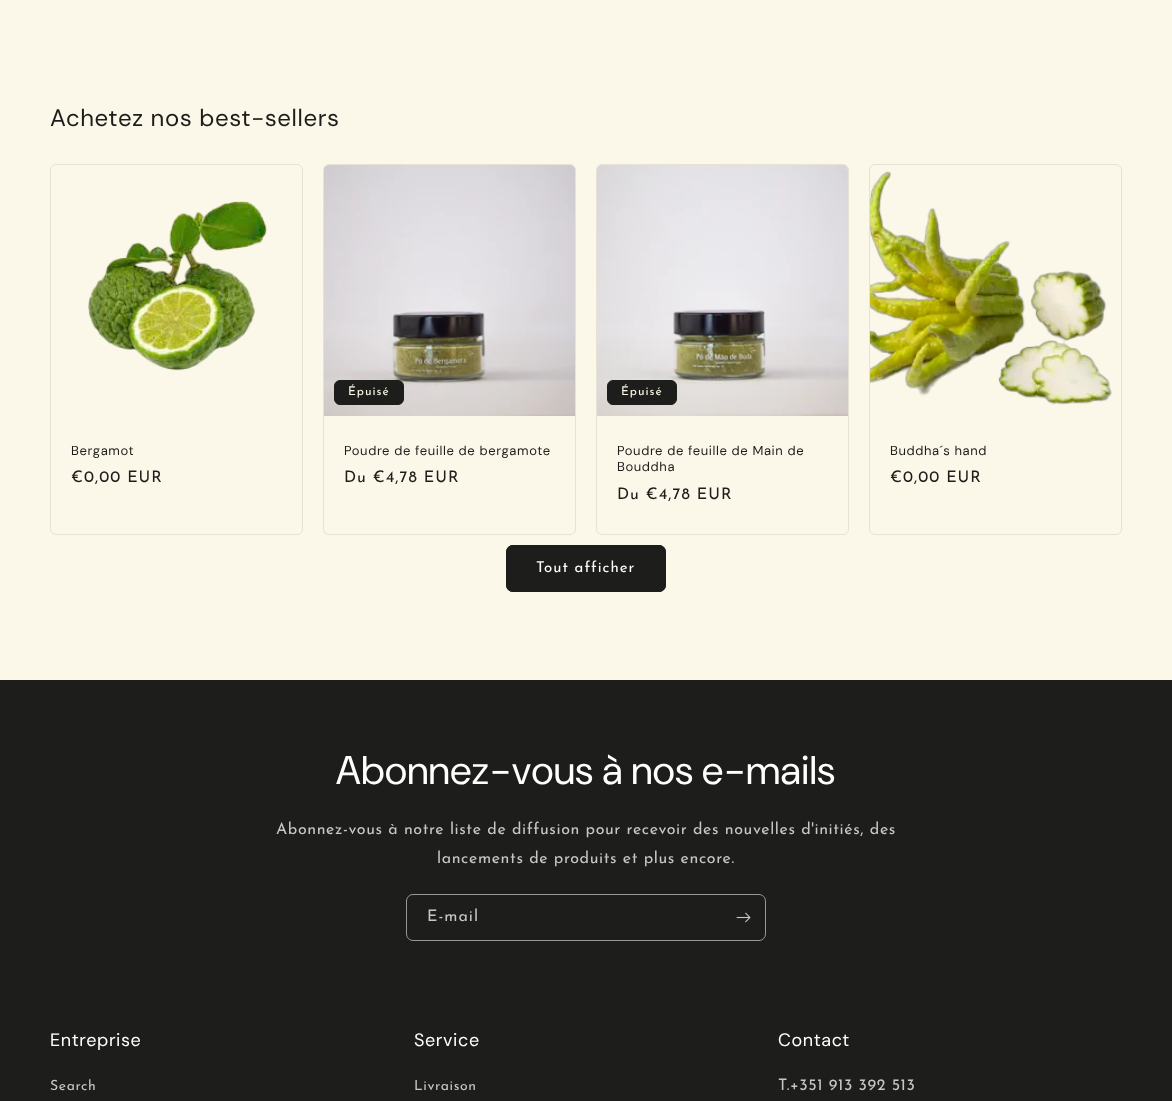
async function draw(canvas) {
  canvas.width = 1172;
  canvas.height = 1101;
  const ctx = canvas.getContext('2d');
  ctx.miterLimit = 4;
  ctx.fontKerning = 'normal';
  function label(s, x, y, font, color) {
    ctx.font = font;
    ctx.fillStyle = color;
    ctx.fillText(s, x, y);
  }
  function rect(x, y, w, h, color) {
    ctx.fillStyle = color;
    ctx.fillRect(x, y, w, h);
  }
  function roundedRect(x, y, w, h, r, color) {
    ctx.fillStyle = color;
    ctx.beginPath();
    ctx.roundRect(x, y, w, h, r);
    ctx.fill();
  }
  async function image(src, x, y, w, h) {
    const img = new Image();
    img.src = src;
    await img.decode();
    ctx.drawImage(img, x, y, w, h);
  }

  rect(0, 0, 1172, 1101, '#fcf8e9');
  ctx.letterSpacing = '0.6px';
  label('Achetez nos best-sellers', 50, 126, '24px "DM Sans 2"', '#1d1d1b');
  ctx.beginPath();
  ctx.roundRect(50.5, 164.5, 252, 370, 5.5);
  ctx.strokeStyle = '#e6e2d4';
  ctx.stroke();
  await image('assets/img1.png', 88, 201, 179, 170);
  label('Bergamot', 71, 455, '13px "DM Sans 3"', '#1d1d1b');
  ctx.letterSpacing = '1px';
  label('€0,00 EUR', 71, 482, '16px Josefin Sans', '#1d1d1b');
  ctx.beginPath();
  ctx.roundRect(323.5, 164.5, 252, 370, 5.5);
  ctx.stroke();
  await image('assets/img2.png', 324, 165, 251, 251);
  ctx.beginPath();
  ctx.roundRect(334.5, 380.5, 69, 24, 5.5);
  ctx.fill();
  ctx.strokeStyle = '#1d1d1b';
  ctx.stroke();
  label('Épuisé', 348, 395, '12px Josefin Sans', '#fcf8e9');
  ctx.letterSpacing = '0.6px';
  label('Poudre de feuille de bergamote', 344, 455, '13px "DM Sans 3"', '#1d1d1b');
  ctx.letterSpacing = '1px';
  label('Du €4,78 EUR', 344, 482, '16px Josefin Sans', '#1d1d1b');
  ctx.beginPath();
  ctx.roundRect(596.5, 164.5, 252, 370, 5.5);
  ctx.strokeStyle = '#e6e2d4';
  ctx.stroke();
  await image('assets/img3.png', 597, 165, 251, 251);
  ctx.beginPath();
  ctx.roundRect(607.5, 380.5, 69, 24, 5.5);
  ctx.fill();
  ctx.strokeStyle = '#1d1d1b';
  ctx.stroke();
  label('Épuisé', 621, 395, '12px Josefin Sans', '#fcf8e9');
  ctx.letterSpacing = '0.6px';
  label('Poudre de feuille de Main de', 617, 455, '13px "DM Sans 3"', '#1d1d1b');
  label('Bouddha', 617, 471, '13px "DM Sans 3"', '#1d1d1b');
  ctx.letterSpacing = '1px';
  label('Du €4,78 EUR', 617, 499, '16px Josefin Sans', '#1d1d1b');
  ctx.beginPath();
  ctx.roundRect(869.5, 164.5, 252, 370, 5.5);
  ctx.strokeStyle = '#e6e2d4';
  ctx.stroke();
  await image('assets/img4.png', 870, 171, 242, 234);
  ctx.letterSpacing = '0.6px';
  label('Buddha´s hand', 890, 455, '13px "DM Sans 3"', '#1d1d1b');
  ctx.letterSpacing = '1px';
  label('€0,00 EUR', 890, 482, '16px Josefin Sans', '#1d1d1b');
  roundedRect(506, 545, 160, 47, 7, '#1d1d1b');
  ctx.beginPath();
  ctx.roundRect(506.5, 545.5, 159, 46, 6.5);
  ctx.strokeStyle = '#1d1d1b';
  ctx.stroke();
  label('Tout afficher', 536, 572, '15px Josefin Sans', '#fff');
  rect(0, 680, 1172, 421, '#1d1d1b');
  ctx.letterSpacing = '0.6px';
  label('Abonnez-vous à nos e-mails', 336, 784, '40px "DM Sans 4"', '#fff');
  label('Abonnez-vous à notre liste de diffusion pour recevoir des nouvelles d\'initiés, des', 276, 834, '16px Josefin Sans', '#c7c7c6');
  label('lancements de produits et plus encore.', 437, 863, '16px Josefin Sans', '#c7c7c6');
  ctx.beginPath();
  ctx.roundRect(406.5, 894.5, 359, 46, 6.5);
  ctx.strokeStyle = '#999998';
  ctx.stroke();
  ctx.letterSpacing = '1px';
  label('E-mail', 427, 921, '16px Josefin Sans', '#c7c7c6');
  await image('assets/img5.png', 736, 912, 15, 11);
  ctx.letterSpacing = '0.6px';
  label('Entreprise', 50, 1046, '18px DM Sans', '#fff');
  label('Search', 50, 1090, '14px Josefin Sans', '#c7c7c6');
  label('Service', 414, 1046, '18px DM Sans', '#fff');
  label('Livraison', 414, 1090, '14px Josefin Sans', '#c7c7c6');
  label('Contact', 778, 1046, '18px DM Sans', '#fff');
  label('T.+351 913 392 513', 778, 1090, '16px Josefin Sans', '#c7c7c6');
}

draw(document.querySelector('canvas'));
